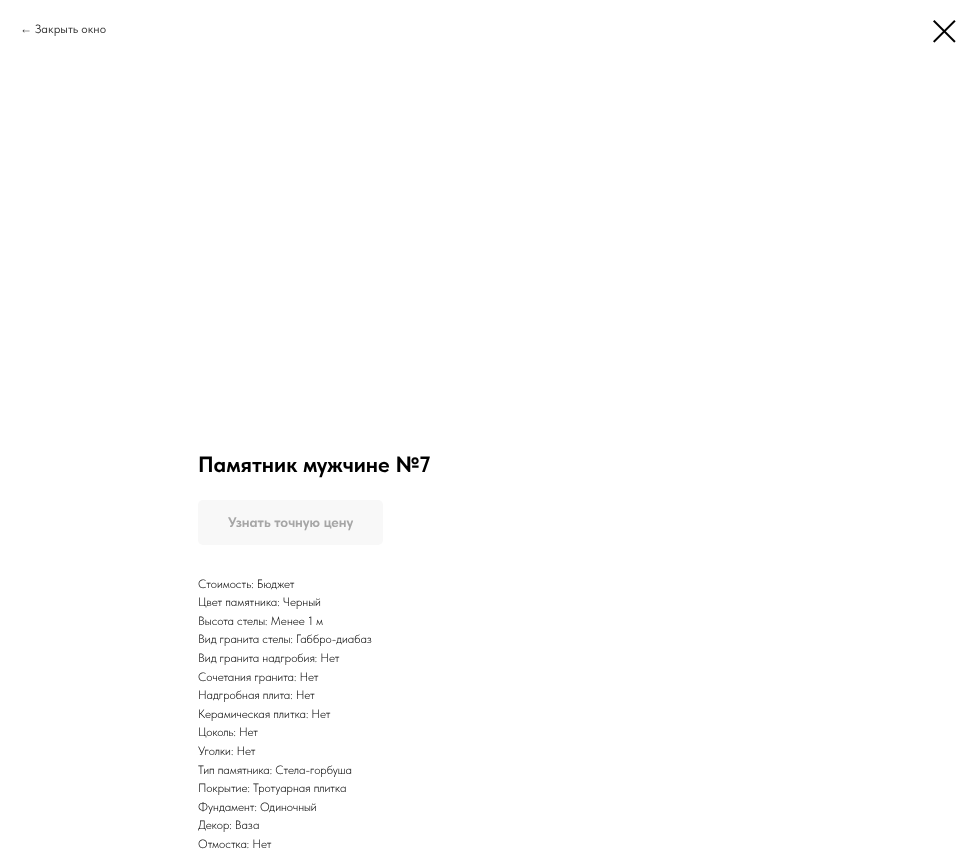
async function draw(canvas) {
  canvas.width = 976;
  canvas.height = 859;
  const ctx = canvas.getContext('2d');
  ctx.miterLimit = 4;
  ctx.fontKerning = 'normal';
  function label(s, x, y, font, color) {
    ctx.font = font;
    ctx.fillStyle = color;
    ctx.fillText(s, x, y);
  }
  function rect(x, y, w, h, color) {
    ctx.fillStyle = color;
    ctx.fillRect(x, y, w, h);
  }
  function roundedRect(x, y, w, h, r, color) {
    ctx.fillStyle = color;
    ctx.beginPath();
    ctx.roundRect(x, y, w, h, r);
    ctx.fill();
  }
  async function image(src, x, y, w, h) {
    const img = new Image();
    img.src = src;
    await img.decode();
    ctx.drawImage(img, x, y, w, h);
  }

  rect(0, 0, 976, 859, '#fff');
  label('←', 20, 33, '12px Liberation Sans', '#333');
  label('Закрыть окно', 35, 33, '12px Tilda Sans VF', '#333');
  await image('assets/img1.png', 933, 20, 23, 23);
  label('Памятник мужчине №7', 198, 472, 'bold 22px Tilda Sans VF', '#000');
  roundedRect(198, 500, 185, 45, 5, '#f8f8f8');
  label('Узнать точную цену', 228, 527, 'bold 14px Tilda Sans VF', '#a6a6a6');
  label('Стоимость: Бюджет', 198, 588, '300 12px Tilda Sans VF', '#000');
  label('Цвет памятника: Черный', 198, 606, '300 12px Tilda Sans VF', '#000');
  label('Высота стелы: Менее 1 м', 198, 625, '300 12px Tilda Sans VF', '#000');
  label('Вид гранита стелы: Габбро-диабаз', 198, 643, '300 12px Tilda Sans VF', '#000');
  label('Вид гранита надгробия: Нет', 198, 662, '300 12px Tilda Sans VF', '#000');
  label('Сочетания гранита: Нет', 198, 681, '300 12px Tilda Sans VF', '#000');
  label('Надгробная плита: Нет', 198, 699, '300 12px Tilda Sans VF', '#000');
  label('Керамическая плитка: Нет', 198, 718, '300 12px Tilda Sans VF', '#000');
  label('Цоколь: Нет', 198, 736, '300 12px Tilda Sans VF', '#000');
  label('Уголки: Нет', 198, 755, '300 12px Tilda Sans VF', '#000');
  label('Тип памятника: Стела-горбуша', 198, 774, '300 12px Tilda Sans VF', '#000');
  label('Покрытие: Тротуарная плитка', 198, 792, '300 12px Tilda Sans VF', '#000');
  label('Фундамент: Одиночный', 198, 811, '300 12px Tilda Sans VF', '#000');
  label('Декор: Ваза', 198, 829, '300 12px Tilda Sans VF', '#000');
  label('Отмостка: Нет', 198, 848, '300 12px Tilda Sans VF', '#000');
}

draw(document.querySelector('canvas'));
